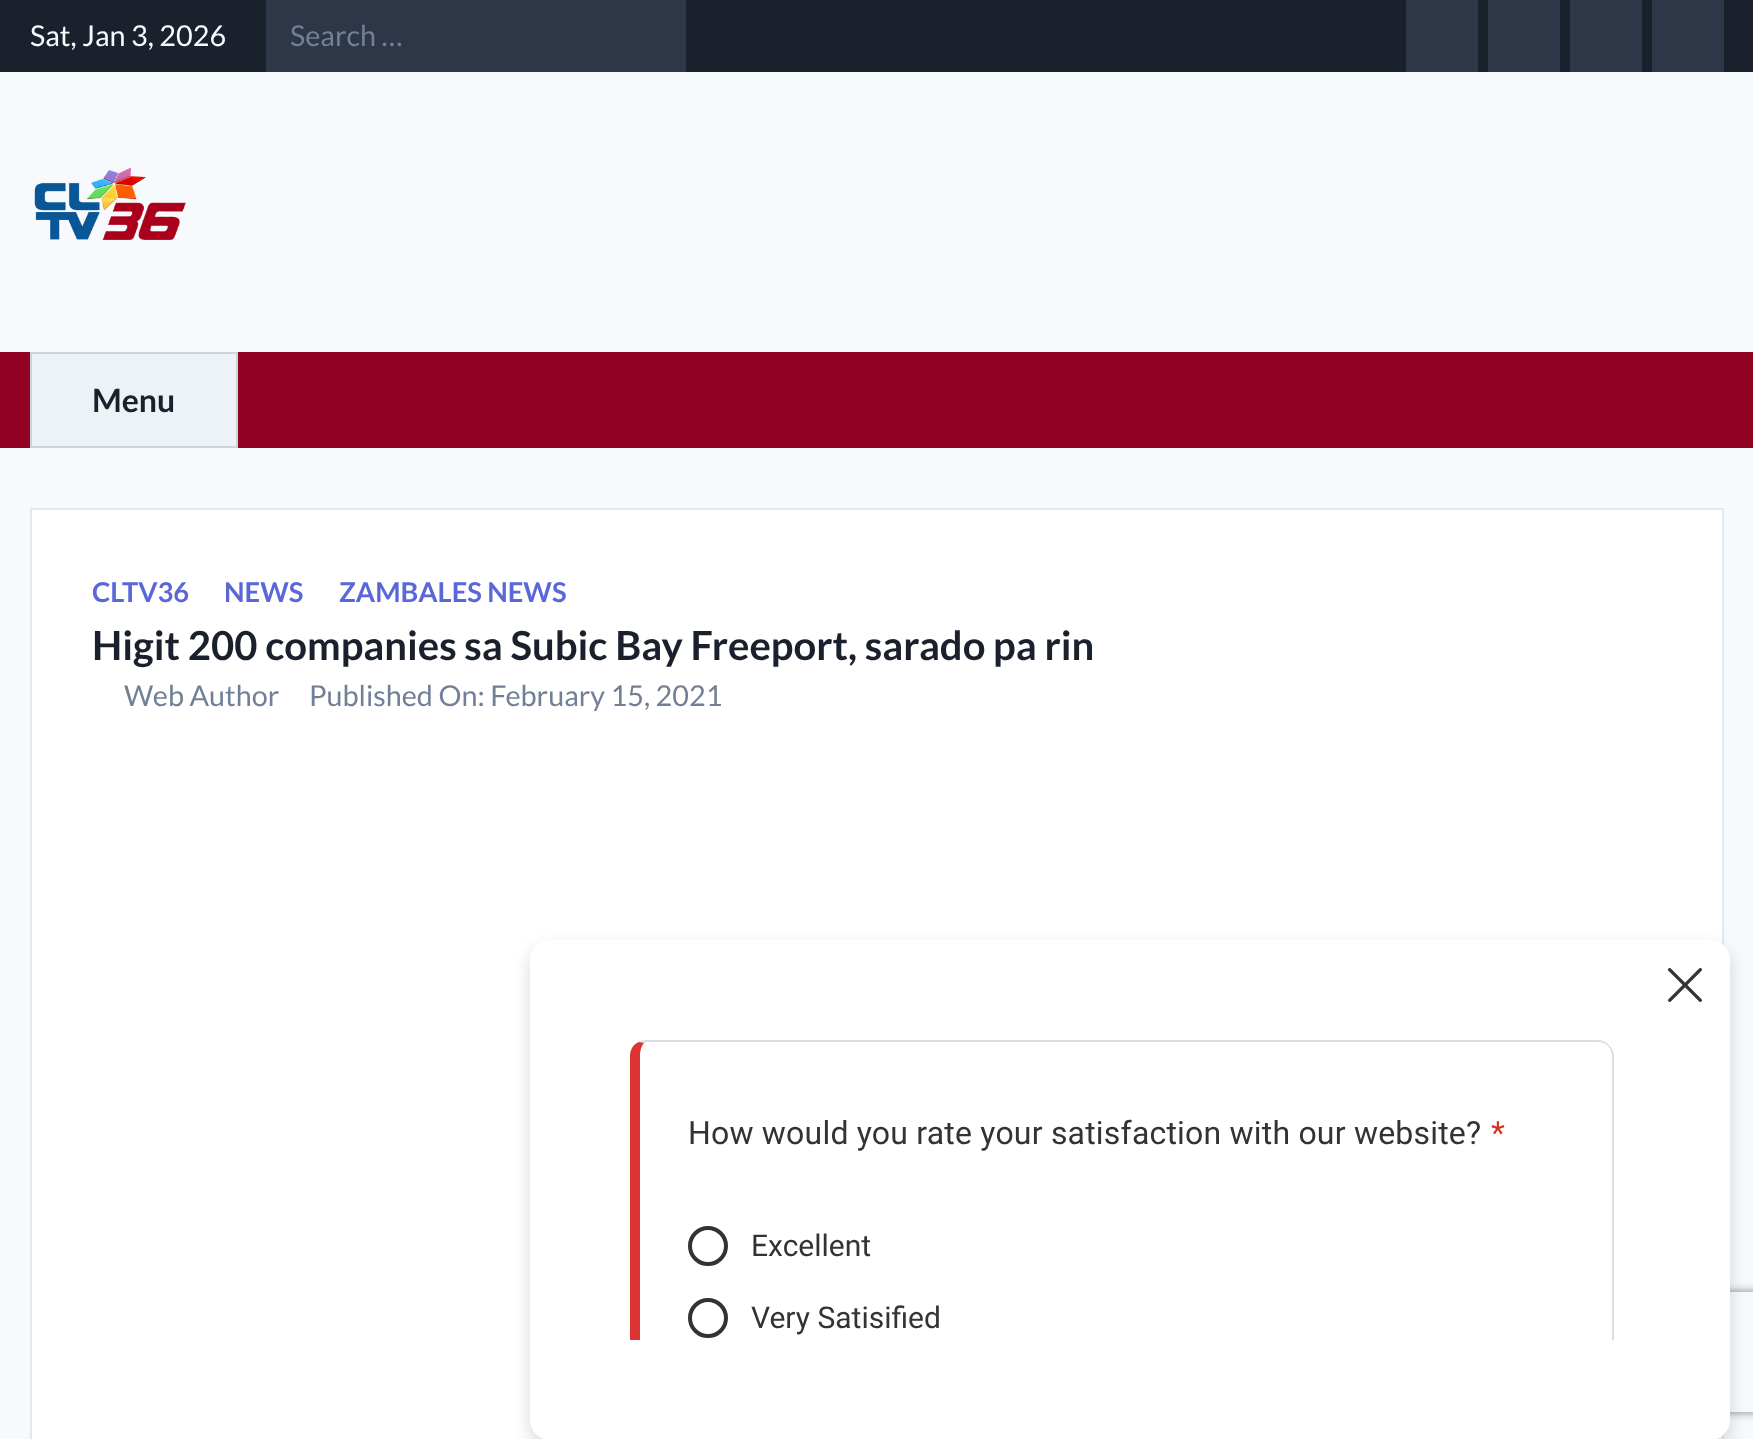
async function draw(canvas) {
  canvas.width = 1753;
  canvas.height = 1439;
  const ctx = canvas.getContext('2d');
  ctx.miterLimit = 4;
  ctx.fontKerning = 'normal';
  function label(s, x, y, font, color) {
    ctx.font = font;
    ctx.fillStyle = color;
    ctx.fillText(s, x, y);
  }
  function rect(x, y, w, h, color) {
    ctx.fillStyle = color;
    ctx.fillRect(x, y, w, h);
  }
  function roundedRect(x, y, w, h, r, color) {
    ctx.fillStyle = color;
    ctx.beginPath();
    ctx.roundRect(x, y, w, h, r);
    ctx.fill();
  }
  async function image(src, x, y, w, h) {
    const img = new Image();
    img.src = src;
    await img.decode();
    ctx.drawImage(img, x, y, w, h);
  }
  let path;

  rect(0, 0, 1753, 1439, '#f7fafc');
  rect(0, 0, 1753, 72, '#1a202c');
  label('Sat, Jan 3, 2026', 30, 46, '28.75px Lato', '#f7fafc');
  rect(266, 0, 420, 72, '#2d3748');
  label('Search …', 290, 46, '28.75px Lato', '#718096');
  rect(1406, 0, 72, 72, '#2d3748');
  rect(1488, 0, 72, 72, '#2d3748');
  rect(1570, 0, 72, 72, '#2d3748');
  rect(1652, 0, 72, 72, '#2d3748');
  await image('assets/img1.png', 34, 167, 152, 73);
  rect(0, 352, 1753, 96, '#910121');
  ctx.fillStyle = '#edf2f7';
  ctx.beginPath();
  ctx.rect(31, 353, 206, 94);
  ctx.fill();
  ctx.strokeStyle = '#cbd5e0';
  ctx.lineWidth = 2;
  ctx.stroke();
  label('Menu', 92, 412, 'bold 32px Lato', '#1a202c');
  ctx.fillStyle = '#fff';
  ctx.beginPath();
  ctx.rect(31, 509, 1692, 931);
  ctx.fill();
  ctx.strokeStyle = '#e2e8f0';
  ctx.stroke();
  label('CLTV36', 92, 602, 'bold 27.25px Lato', '#5a67d8');
  label('NEWS', 224, 602, 'bold 27.25px Lato', '#5a67d8');
  label('ZAMBALES NEWS', 339, 602, 'bold 27.25px Lato', '#5a67d8');
  label('Higit 200 companies sa Subic Bay Freeport, sarado pa rin', 92, 660, 'bold 40px Lato', '#1a202c');
  label('Web Author', 124, 706, '28.75px Lato', '#718096');
  label('Published On: February 15, 2021', 309, 706, '28.75px Lato', '#718096');
  ctx.fillStyle = '#6061673d';
  ctx.filter = 'blur(8.5px)';
  ctx.beginPath();
  ctx.roundRect(530, 948, 1200, 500, 20);
  ctx.fill();
  ctx.filter = 'none';
  ctx.save();
  path = new Path2D('M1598 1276H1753V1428H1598ZM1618 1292H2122C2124 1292 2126 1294 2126 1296V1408C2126 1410 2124 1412 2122 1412H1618C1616 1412 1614 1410 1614 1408V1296C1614 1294 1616 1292 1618 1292Z');
  ctx.clip(path, 'evenodd');
  ctx.fillStyle = '#808080';
  ctx.filter = 'blur(5px)';
  ctx.beginPath();
  ctx.roundRect(1614, 1292, 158, 120, 4);
  ctx.fill();
  ctx.filter = 'none';
  ctx.restore();
  roundedRect(530, 940, 1200, 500, 20, '#fff');
  await image('assets/img2.png', 1668, 968, 34, 34);
  ctx.fillStyle = '#dadce0';
  path = new Path2D('M646 1040C643 1040 641 1041 639 1042L644 1043L646 1042H1598C1602 1042 1605 1043 1608 1046L1609 1045C1606 1042 1602 1040 1598 1040Z');
  ctx.fill(path);
  ctx.save();
  ctx.beginPath();
  ctx.rect(630, 1040, 1000, 300);
  ctx.clip();
  path = new Path2D('M1614 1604V1056C1614 1052 1612 1048 1609 1045L1608 1046C1610 1048 1612 1052 1612 1056V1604C1612 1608 1610 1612 1608 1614L1609 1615C1612 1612 1614 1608 1614 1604Z');
  ctx.fill(path);
  ctx.fillStyle = '#d33';
  path = new Path2D('M630 1056V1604C630 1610 633 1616 639 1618L644 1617C642 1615 640 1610 640 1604V1056C640 1050 642 1045 644 1043L639 1042C633 1044 630 1050 630 1056Z');
  ctx.fill(path);
  ctx.restore();
  ctx.letterSpacing = '0.2px';
  label('How would you rate your satisfaction with our website?', 688, 1144, '32px Roboto', '#333');
  label('*', 1491, 1144, '32px Roboto', '#d93025');
  ctx.beginPath();
  ctx.arc(708, 1246, 18, 0, 2 * Math.PI);
  ctx.strokeStyle = '#333';
  ctx.lineWidth = 4;
  ctx.stroke();
  ctx.letterSpacing = '0px';
  label('Excellent', 751, 1256, '30px Roboto', '#333');
  ctx.beginPath();
  ctx.arc(708, 1318, 18, 0, 2 * Math.PI);
  ctx.stroke();
  label('Very Satisified', 751, 1328, '30px Roboto', '#333');
}

draw(document.querySelector('canvas'));
